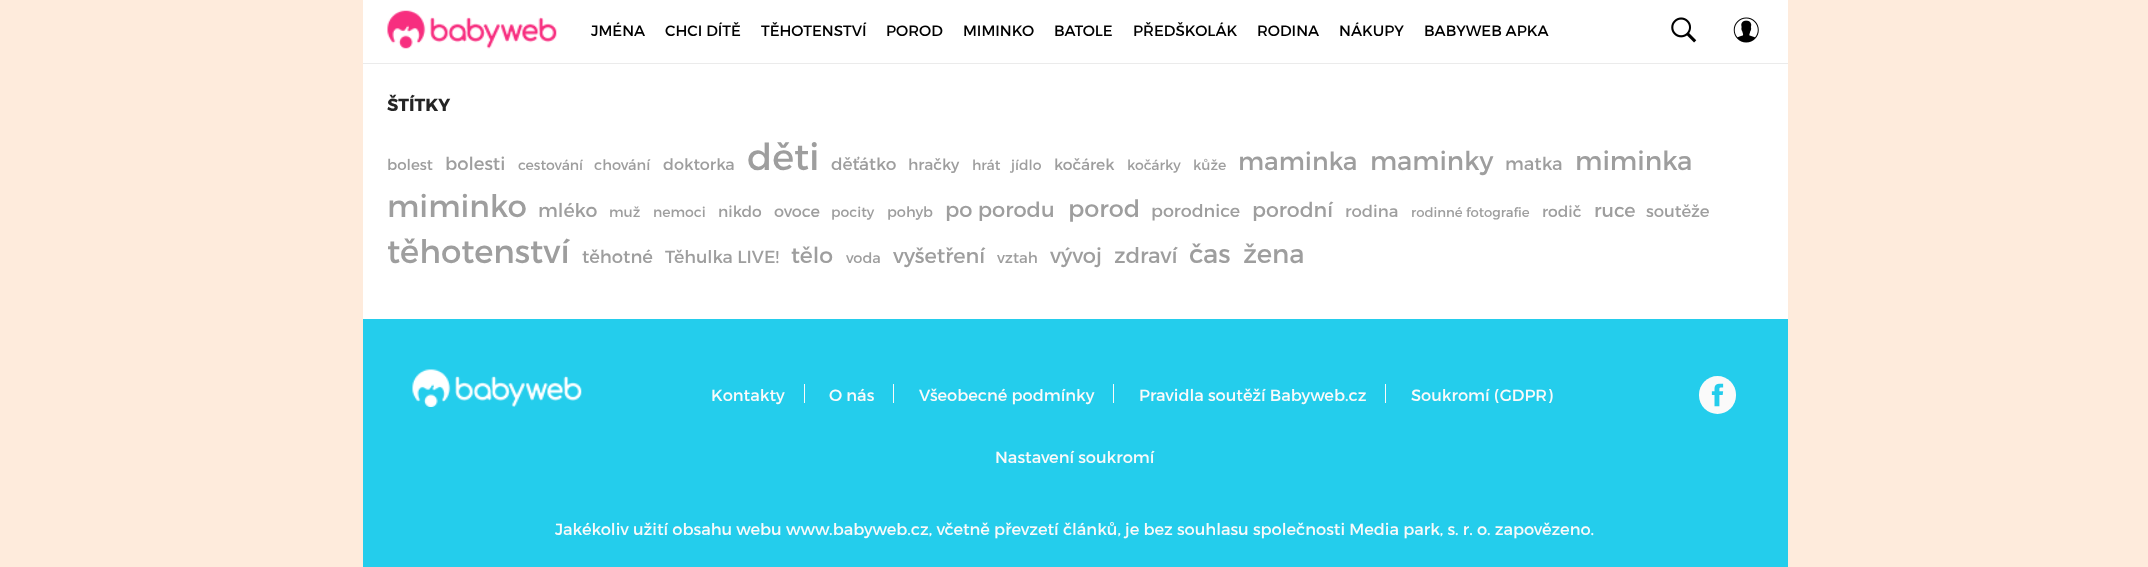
async function draw(canvas) {
  canvas.width = 2148;
  canvas.height = 567;
  const ctx = canvas.getContext('2d');
  ctx.miterLimit = 4;
  ctx.fontKerning = 'normal';
  function label(s, x, y, font, color) {
    ctx.font = font;
    ctx.fillStyle = color;
    ctx.fillText(s, x, y);
  }
  function rect(x, y, w, h, color) {
    ctx.fillStyle = color;
    ctx.fillRect(x, y, w, h);
  }
  function roundedRect(x, y, w, h, r, color) {
    ctx.fillStyle = color;
    ctx.beginPath();
    ctx.roundRect(x, y, w, h, r);
    ctx.fill();
  }
  async function image(src, x, y, w, h) {
    const img = new Image();
    img.src = src;
    await img.decode();
    ctx.drawImage(img, x, y, w, h);
  }

  rect(0, 0, 2148, 567, '#feebdc');
  rect(363, 0, 1425, 63, '#fff');
  rect(363, 63, 1425, 1, '#ebebeb');
  await image('assets/img1.png', 387, 10, 170, 39);
  label('JMÉNA', 591, 36, '15px Montserrat', '#000');
  label('CHCI DÍTĚ', 665, 36, '15px Montserrat', '#000');
  label('TĚHOTENSTVÍ', 761, 36, '15px Montserrat', '#000');
  label('POROD', 886, 36, '15px Montserrat', '#000');
  label('MIMINKO', 963, 36, '15px Montserrat', '#000');
  label('BATOLE', 1054, 36, '15px Montserrat', '#000');
  label('PŘEDŠKOLÁK', 1133, 36, '15px Montserrat', '#000');
  label('RODINA', 1257, 36, '15px Montserrat', '#000');
  label('NÁKUPY', 1339, 36, '15px Montserrat', '#000');
  label('BABYWEB APKA', 1424, 36, '15px Montserrat', '#000');
  await image('assets/img2.png', 1671, 17, 26, 26);
  await image('assets/img3.png', 1733, 17, 26, 26);
  rect(363, 64, 1425, 255, '#fff');
  label('ŠTÍTKY', 387, 111, 'bold 17.5px Montserrat', '#242424');
  label('bolest', 387, 170, '15px Montserrat', '#9e9e9e');
  label('bolesti', 445, 170, '18px Montserrat', '#9e9e9e');
  label('cestování', 518, 170, '14px Montserrat', '#9e9e9e');
  label('chování', 594, 170, '14.5px Montserrat', '#9e9e9e');
  label('doktorka', 663, 170, '16px Montserrat', '#9e9e9e');
  label('děti', 747, 170, '37px Montserrat', '#9e9e9e');
  label('děťátko', 831, 170, '17px Montserrat', '#9e9e9e');
  label('hračky', 908, 170, '15.5px Montserrat', '#9e9e9e');
  label('hrát', 972, 170, '14px Montserrat', '#9e9e9e');
  label('jídlo', 1011, 170, '14px Montserrat', '#9e9e9e');
  label('kočárek', 1054, 170, '15.5px Montserrat', '#9e9e9e');
  label('kočárky', 1127, 170, '14px Montserrat', '#9e9e9e');
  label('kůže', 1193, 170, '14px Montserrat', '#9e9e9e');
  label('maminka', 1238, 170, '25px Montserrat', '#9e9e9e');
  label('maminky', 1370, 170, '26px Montserrat', '#9e9e9e');
  label('matka', 1505, 170, '18px Montserrat', '#9e9e9e');
  label('miminka', 1575, 170, '26.25px Montserrat', '#9e9e9e');
  label('miminko', 387, 217, '31px Montserrat', '#9e9e9e');
  label('mléko', 538, 217, '19px Montserrat', '#9e9e9e');
  label('muž', 609, 217, '14px Montserrat', '#9e9e9e');
  label('nemoci', 653, 217, '14px Montserrat', '#9e9e9e');
  label('nikdo', 718, 217, '15.5px Montserrat', '#9e9e9e');
  label('ovoce', 774, 217, '16px Montserrat', '#9e9e9e');
  label('pocity', 831, 217, '14px Montserrat', '#9e9e9e');
  label('pohyb', 887, 217, '14.5px Montserrat', '#9e9e9e');
  label('po porodu', 945, 217, '21px Montserrat', '#9e9e9e');
  label('porod', 1068, 217, '24px Montserrat', '#9e9e9e');
  label('porodnice', 1151, 217, '17.5px Montserrat', '#9e9e9e');
  label('porodní', 1252, 217, '20.5px Montserrat', '#9e9e9e');
  label('rodina', 1345, 217, '16.5px Montserrat', '#9e9e9e');
  label('rodinné fotografie', 1411, 217, '13.25px Montserrat', '#9e9e9e');
  label('rodič', 1542, 217, '15.5px Montserrat', '#9e9e9e');
  label('ruce', 1594, 217, '19px Montserrat', '#9e9e9e');
  label('soutěže', 1646, 217, '16.5px Montserrat', '#9e9e9e');
  label('těhotenství', 387, 263, '32.5px Montserrat', '#9e9e9e');
  label('těhotné', 582, 263, '18px Montserrat', '#9e9e9e');
  label('Těhulka LIVE!', 665, 263, '17.5px Montserrat', '#9e9e9e');
  label('tělo', 791, 263, '22px Montserrat', '#9e9e9e');
  label('voda', 846, 263, '14.5px Montserrat', '#9e9e9e');
  label('vyšetření', 893, 263, '20.75px Montserrat', '#9e9e9e');
  label('vztah', 997, 263, '15px Montserrat', '#9e9e9e');
  label('vývoj', 1050, 263, '21px Montserrat', '#9e9e9e');
  label('zdraví', 1114, 263, '21.5px Montserrat', '#9e9e9e');
  label('čas', 1189, 263, '26px Montserrat', '#9e9e9e');
  label('žena', 1243, 263, '26px Montserrat', '#9e9e9e');
  rect(363, 319, 1425, 248, '#24cdec');
  await image('assets/img4.png', 412, 369, 170, 38);
  label('Kontakty', 711, 401, '16.25px Montserrat', '#fafafa');
  rect(804, 384, 1, 19, '#fafafa');
  label('O nás', 829, 401, '16.25px Montserrat', '#fafafa');
  rect(893, 384, 1, 19, '#fafafa');
  label('Všeobecné podmínky', 919, 401, '16.25px Montserrat', '#fafafa');
  rect(1113, 384, 1, 19, '#fafafa');
  label('Pravidla soutěží Babyweb.cz', 1139, 401, '16.25px Montserrat', '#fafafa');
  rect(1385, 384, 1, 19, '#fafafa');
  label('Soukromí (GDPR)', 1411, 401, '16.25px Montserrat', '#fafafa');
  roundedRect(1699, 376, 37, 38, 18.5, '#fafafa');
  await image('assets/img5.png', 1711, 383, 13, 24);
  label('Nastavení soukromí', 995, 463, '16.25px Montserrat', '#fafafa');
  label('Jakékoliv užití obsahu webu www.babyweb.cz, včetně převzetí článků, je bez souhlasu společnosti Media park, s. r. o. zapovězeno.', 555, 535, '16.25px Montserrat', '#fafafa');
}

draw(document.querySelector('canvas'));
